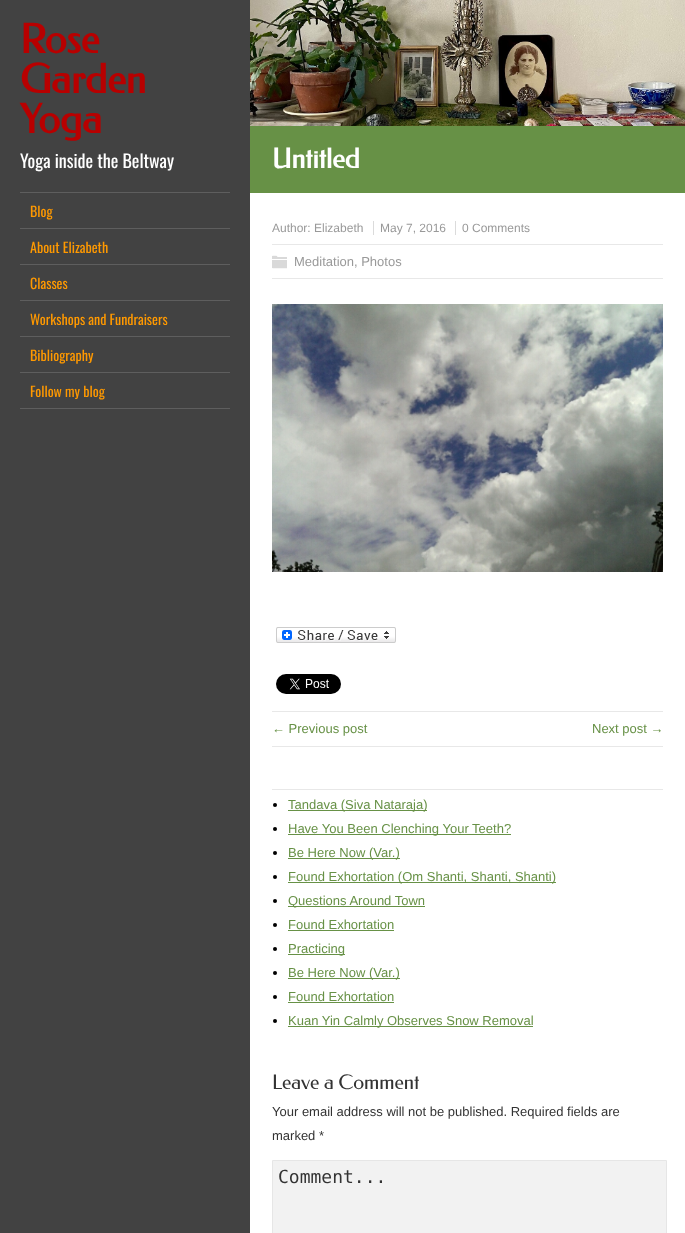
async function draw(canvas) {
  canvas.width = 685;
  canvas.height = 1233;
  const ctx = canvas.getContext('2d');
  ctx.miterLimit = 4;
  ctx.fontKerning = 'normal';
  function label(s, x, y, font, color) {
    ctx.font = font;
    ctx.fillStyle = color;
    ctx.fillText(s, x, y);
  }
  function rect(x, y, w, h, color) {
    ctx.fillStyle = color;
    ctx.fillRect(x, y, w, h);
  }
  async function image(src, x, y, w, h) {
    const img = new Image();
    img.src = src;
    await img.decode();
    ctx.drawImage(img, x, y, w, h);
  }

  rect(0, 0, 685, 1233, '#fff');
  rect(0, 0, 250, 1233, '#424242');
  label('Rose', 20, 53, 'bold 40px Federo', '#b80000');
  label('Garden', 20, 93, 'bold 40px Federo', '#b80000');
  label('Yoga', 20, 133, 'bold 40px Federo', '#b80000');
  label('Yoga inside the Beltway', 20, 168, '18px Oswald', '#fff');
  rect(20, 192, 210, 1, '#5e5e5e');
  rect(20, 228, 210, 1, '#5e5e5e');
  label('Blog', 30, 217, '14px Oswald', '#f90');
  rect(20, 264, 210, 1, '#5e5e5e');
  label('About Elizabeth', 30, 253, '14px Oswald', '#f90');
  rect(20, 300, 210, 1, '#5e5e5e');
  label('Classes', 30, 289, '14px Oswald', '#f90');
  rect(20, 336, 210, 1, '#5e5e5e');
  label('Workshops and Fundraisers', 30, 325, '14px Oswald', '#f90');
  rect(20, 372, 210, 1, '#5e5e5e');
  label('Bibliography', 30, 361, '14px Oswald', '#f90');
  rect(20, 408, 210, 1, '#5e5e5e');
  label('Follow my blog', 30, 397, '14px Oswald', '#f90');
  await image('assets/img1.png', 250, 0, 435, 126);
  rect(250, 126, 435, 67, '#679146');
  label('Untitled', 272, 168, 'bold 27px Federo', '#fff');
  label('Author: Elizabeth', 272, 232, '12px Liberation Sans', '#999');
  label('May 7, 2016', 380, 232, '12px Liberation Sans', '#999');
  rect(373, 221, 1, 14, '#dbdbdb');
  label('0 Comments', 462, 232, '12px Liberation Sans', '#999');
  rect(455, 221, 1, 14, '#dbdbdb');
  rect(272, 244, 391, 1, '#e8e8e8');
  rect(272, 278, 391, 1, '#e8e8e8');
  await image('assets/img2.png', 272, 255, 15, 14);
  label('Meditation, Photos', 294, 266, '13px Liberation Sans', '#999');
  await image('assets/img3.png', 272, 304, 391, 268);
  await image('assets/img4.png', 276, 627, 120, 16);
  await image('assets/img5.png', 276, 674, 65, 20);
  rect(272, 711, 391, 1, '#e8e8e8');
  rect(272, 746, 391, 1, '#e8e8e8');
  label('← Previous post', 272, 733, '13px Liberation Sans', '#679146');
  label('Next post →', 592, 733, '13px Liberation Sans', '#679146');
  rect(272, 789, 391, 1, '#e8e8e8');
  ctx.fillStyle = '#000';
  ctx.beginPath();
  ctx.arc(275, 805, 2, 0, 2 * Math.PI);
  ctx.fill();
  rect(288, 810, 139, 1, '#679146');
  label('Tandava (Siva Nataraja)', 288, 809, '13px Liberation Sans', '#679146');
  ctx.fillStyle = '#000';
  ctx.beginPath();
  ctx.arc(275, 829, 2, 0, 2 * Math.PI);
  ctx.fill();
  rect(288, 834, 223, 1, '#679146');
  label('Have You Been Clenching Your Teeth?', 288, 833, '13px Liberation Sans', '#679146');
  ctx.fillStyle = '#000';
  ctx.beginPath();
  ctx.arc(275, 853, 2, 0, 2 * Math.PI);
  ctx.fill();
  rect(288, 858, 112, 1, '#679146');
  label('Be Here Now (Var.)', 288, 857, '13px Liberation Sans', '#679146');
  ctx.fillStyle = '#000';
  ctx.beginPath();
  ctx.arc(275, 877, 2, 0, 2 * Math.PI);
  ctx.fill();
  rect(288, 882, 268, 1, '#679146');
  label('Found Exhortation (Om Shanti, Shanti, Shanti)', 288, 881, '13px Liberation Sans', '#679146');
  ctx.fillStyle = '#000';
  ctx.beginPath();
  ctx.arc(275, 901, 2, 0, 2 * Math.PI);
  ctx.fill();
  rect(288, 906, 137, 1, '#679146');
  label('Questions Around Town', 288, 905, '13px Liberation Sans', '#679146');
  ctx.fillStyle = '#000';
  ctx.beginPath();
  ctx.arc(275, 925, 2, 0, 2 * Math.PI);
  ctx.fill();
  label('Found Exhortation', 288, 929, '13px Liberation Sans', '#679146');
  rect(288, 930, 106, 1, '#679146');
  ctx.fillStyle = '#000';
  ctx.beginPath();
  ctx.arc(275, 949, 2, 0, 2 * Math.PI);
  ctx.fill();
  rect(288, 954, 57, 1, '#679146');
  label('Practicing', 288, 953, '13px Liberation Sans', '#679146');
  ctx.fillStyle = '#000';
  ctx.beginPath();
  ctx.arc(275, 973, 2, 0, 2 * Math.PI);
  ctx.fill();
  rect(288, 978, 112, 1, '#679146');
  label('Be Here Now (Var.)', 288, 977, '13px Liberation Sans', '#679146');
  ctx.fillStyle = '#000';
  ctx.beginPath();
  ctx.arc(275, 997, 2, 0, 2 * Math.PI);
  ctx.fill();
  label('Found Exhortation', 288, 1001, '13px Liberation Sans', '#679146');
  rect(288, 1002, 106, 1, '#679146');
  ctx.fillStyle = '#000';
  ctx.beginPath();
  ctx.arc(275, 1021, 2, 0, 2 * Math.PI);
  ctx.fill();
  rect(288, 1026, 245, 1, '#679146');
  label('Kuan Yin Calmly Observes Snow Removal', 288, 1025, '13px Liberation Sans', '#679146');
  label('Leave a Comment', 272, 1089, '20px Federo', '#333');
  label('Your email address will not be published. Required fields are', 272, 1116, '13px Liberation Sans', '#333');
  label('marked *', 272, 1140, '13px Liberation Sans', '#333');
  ctx.fillStyle = '#f2f2f2';
  ctx.beginPath();
  ctx.rect(272.5, 1160.5, 394, 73);
  ctx.fill();
  ctx.strokeStyle = '#e6e6e6';
  ctx.stroke();
  label('Comment...', 278, 1183, '18px DejaVu Sans Mono', '#333');
}

draw(document.querySelector('canvas'));
